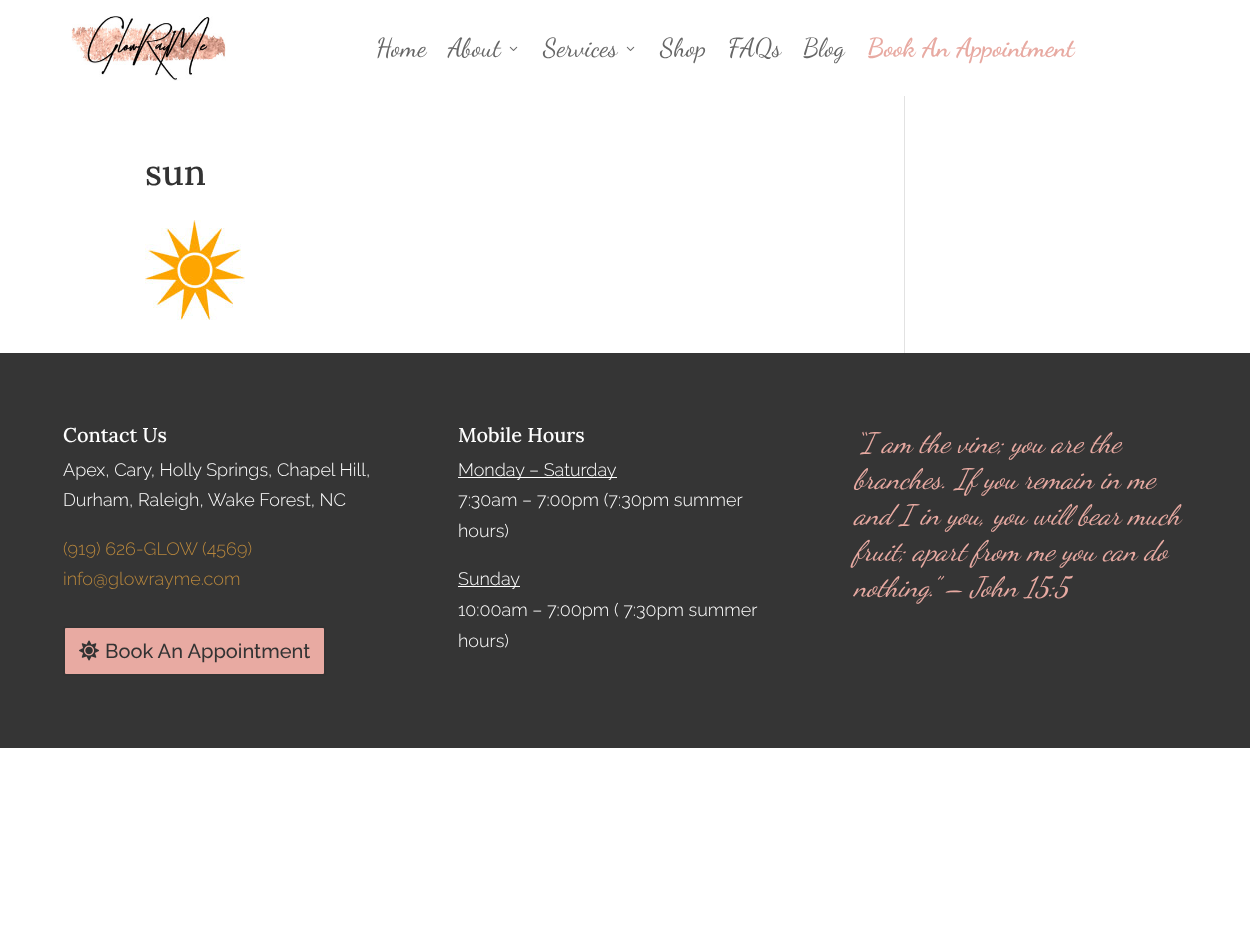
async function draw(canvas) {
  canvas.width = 1250;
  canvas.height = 952;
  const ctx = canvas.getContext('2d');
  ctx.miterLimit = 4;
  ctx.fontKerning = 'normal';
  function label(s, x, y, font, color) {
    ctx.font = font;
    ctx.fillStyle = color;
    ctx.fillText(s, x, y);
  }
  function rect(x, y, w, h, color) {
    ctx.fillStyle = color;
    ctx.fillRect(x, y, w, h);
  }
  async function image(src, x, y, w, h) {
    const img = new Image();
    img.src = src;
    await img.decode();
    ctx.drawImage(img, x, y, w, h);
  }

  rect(0, 0, 1250, 952, '#fff');
  await image('assets/img1.png', 71, 16, 155, 65);
  label('Home', 376, 56, '26px Dancing Script', '#666');
  label('About', 448, 56, '26px Dancing Script', '#666');
  await image('assets/img2.png', 509, 46, 9, 5);
  label('Services', 543, 56, '26px Dancing Script', '#666');
  await image('assets/img2.png', 626, 46, 9, 5);
  label('Shop', 660, 56, '26px Dancing Script', '#666');
  label('FAQs', 728, 56, '26px Dancing Script', '#666');
  label('Blog', 803, 56, '26px Dancing Script', '#666');
  label('Book An Appointment', 867, 56, 'bold 26px Dancing Script', '#e8aaa2');
  label('sun', 145, 185, '500 36px Lora', '#333');
  await image('assets/img3.png', 145, 220, 100, 100);
  rect(904, 96, 1, 257, '#e2e2e2');
  rect(0, 353, 1250, 395, '#353535');
  label('Contact Us', 63, 442, '500 20px Lora', '#fff');
  label('Apex, Cary, Holly Springs, Chapel Hill,', 63, 476, '300 18px Raleway', '#fff');
  label('Durham, Raleigh, Wake Forest, NC', 63, 506, '300 18px Raleway', '#fff');
  label('(919) 626-GLOW (4569)', 63, 555, '300 18px Raleway', '#b7863c');
  label('info@glowrayme.com', 63, 585, '300 18px Raleway', '#b7863c');
  ctx.fillStyle = '#e8aaa2';
  ctx.beginPath();
  ctx.roundRect(64, 627, 261, 48, 2);
  ctx.fill();
  ctx.strokeStyle = '#333';
  ctx.lineWidth = 2;
  ctx.stroke();
  await image('assets/img4.png', 79, 640, 20, 21);
  label('Book An Appointment', 105, 658, '500 20px Raleway', '#333');
  label('Mobile Hours', 458, 442, '500 20px Lora', '#fff');
  rect(458, 477, 159, 1, '#fff');
  label('Monday – Saturday', 458, 476, '300 18px Raleway', '#fff');
  label('7:30am – 7:00pm (7:30pm summer', 458, 506, '300 18px Raleway', '#fff');
  label('hours)', 458, 537, '300 18px Raleway', '#fff');
  rect(458, 586, 62, 1, '#fff');
  label('Sunday', 458, 585, '300 18px Raleway', '#fff');
  label('10:00am – 7:00pm ( 7:30pm summer', 458, 616, '300 18px Raleway', '#fff');
  label('hours)', 458, 647, '300 18px Raleway', '#fff');
  label('“I am the vine; you are the', 854, 452, 'italic 28px Dancing Script', '#e8aaa2');
  label('branches. If you remain in me', 854, 488, 'italic 28px Dancing Script', '#e8aaa2');
  label('and I in you, you will bear much', 854, 524, 'italic 28px Dancing Script', '#e8aaa2');
  label('fruit; apart from me you can do', 854, 560, 'italic 28px Dancing Script', '#e8aaa2');
  label('nothing.” – John 15:5', 854, 596, 'italic 28px Dancing Script', '#e8aaa2');
}

draw(document.querySelector('canvas'));
